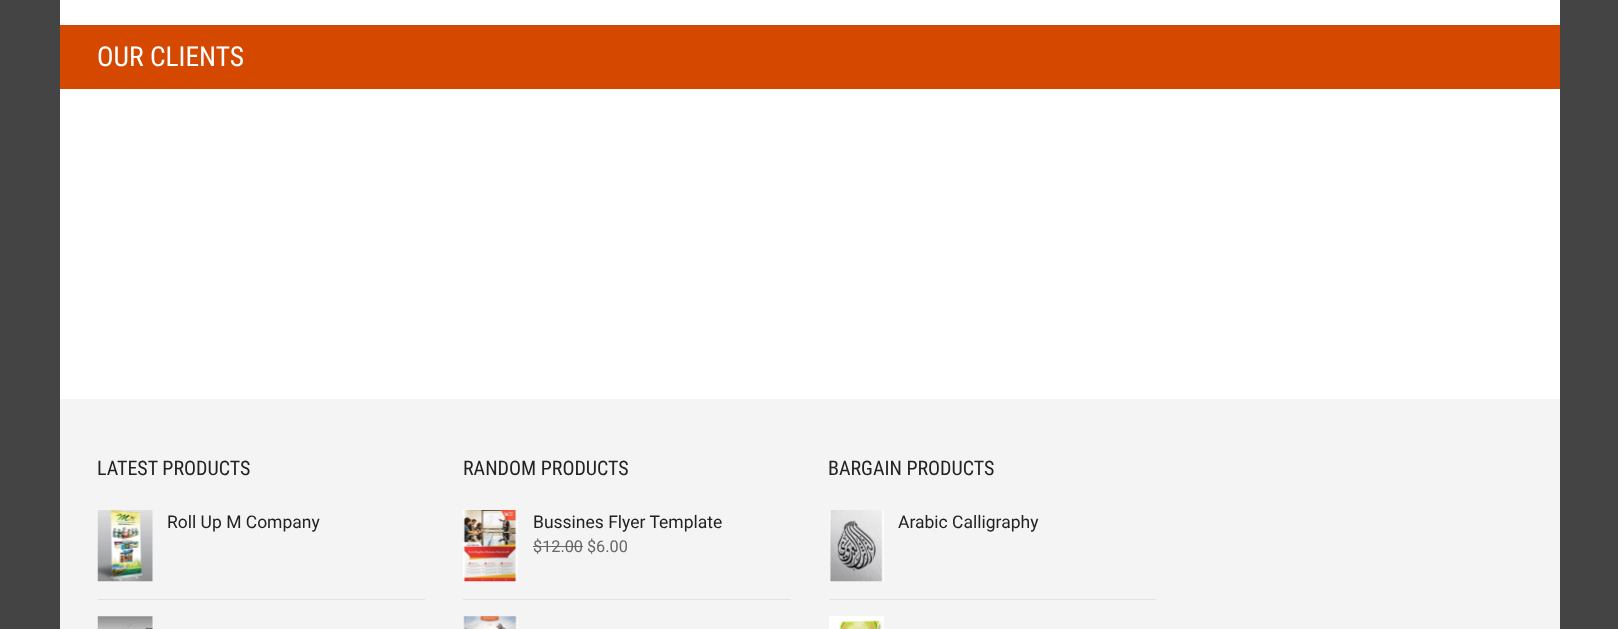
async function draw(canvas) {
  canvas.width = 1618;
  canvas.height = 629;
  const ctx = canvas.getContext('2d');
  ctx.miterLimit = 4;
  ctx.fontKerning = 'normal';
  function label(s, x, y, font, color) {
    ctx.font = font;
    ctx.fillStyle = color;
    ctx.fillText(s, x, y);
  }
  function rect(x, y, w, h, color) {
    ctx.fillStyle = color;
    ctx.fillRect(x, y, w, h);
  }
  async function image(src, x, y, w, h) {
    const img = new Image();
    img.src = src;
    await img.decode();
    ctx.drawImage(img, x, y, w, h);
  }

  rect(0, 0, 1618, 629, '#444');
  rect(60, 0, 1500, 399, '#fff');
  rect(60, 25, 1500, 64, '#d54800');
  label('OUR CLIENTS', 97, 66, '27.5px Roboto Condensed', '#fff');
  rect(60, 399, 1500, 230, '#f4f4f4');
  label('LATEST PRODUCTS', 97, 475, '20px Roboto Condensed', '#222');
  rect(98, 599, 327, 1, '#e3e3e3');
  await image('assets/img1.png', 97, 510, 56, 72);
  label('Roll Up M Company', 167, 528, '17.5px Roboto', '#222');
  await image('assets/img2.png', 97, 616, 56, 13);
  label('RANDOM PRODUCTS', 463, 475, '20px Roboto Condensed', '#222');
  rect(463, 599, 328, 1, '#e3e3e3');
  await image('assets/img3.png', 463, 510, 55, 72);
  label('Bussines Flyer Template', 533, 528, '17.5px Roboto', '#222');
  label('$12.00 $6.00', 533, 552, '16.25px Roboto', '#676767');
  rect(533, 546, 50, 1, '#676767');
  await image('assets/img4.png', 463, 616, 55, 13);
  label('BARGAIN PRODUCTS', 828, 475, '20px Roboto Condensed', '#222');
  rect(829, 599, 327, 1, '#e3e3e3');
  await image('assets/img5.png', 829, 510, 55, 72);
  label('Arabic Calligraphy', 898, 528, '17.5px Roboto', '#222');
  await image('assets/img6.png', 829, 616, 55, 13);
}

draw(document.querySelector('canvas'));
